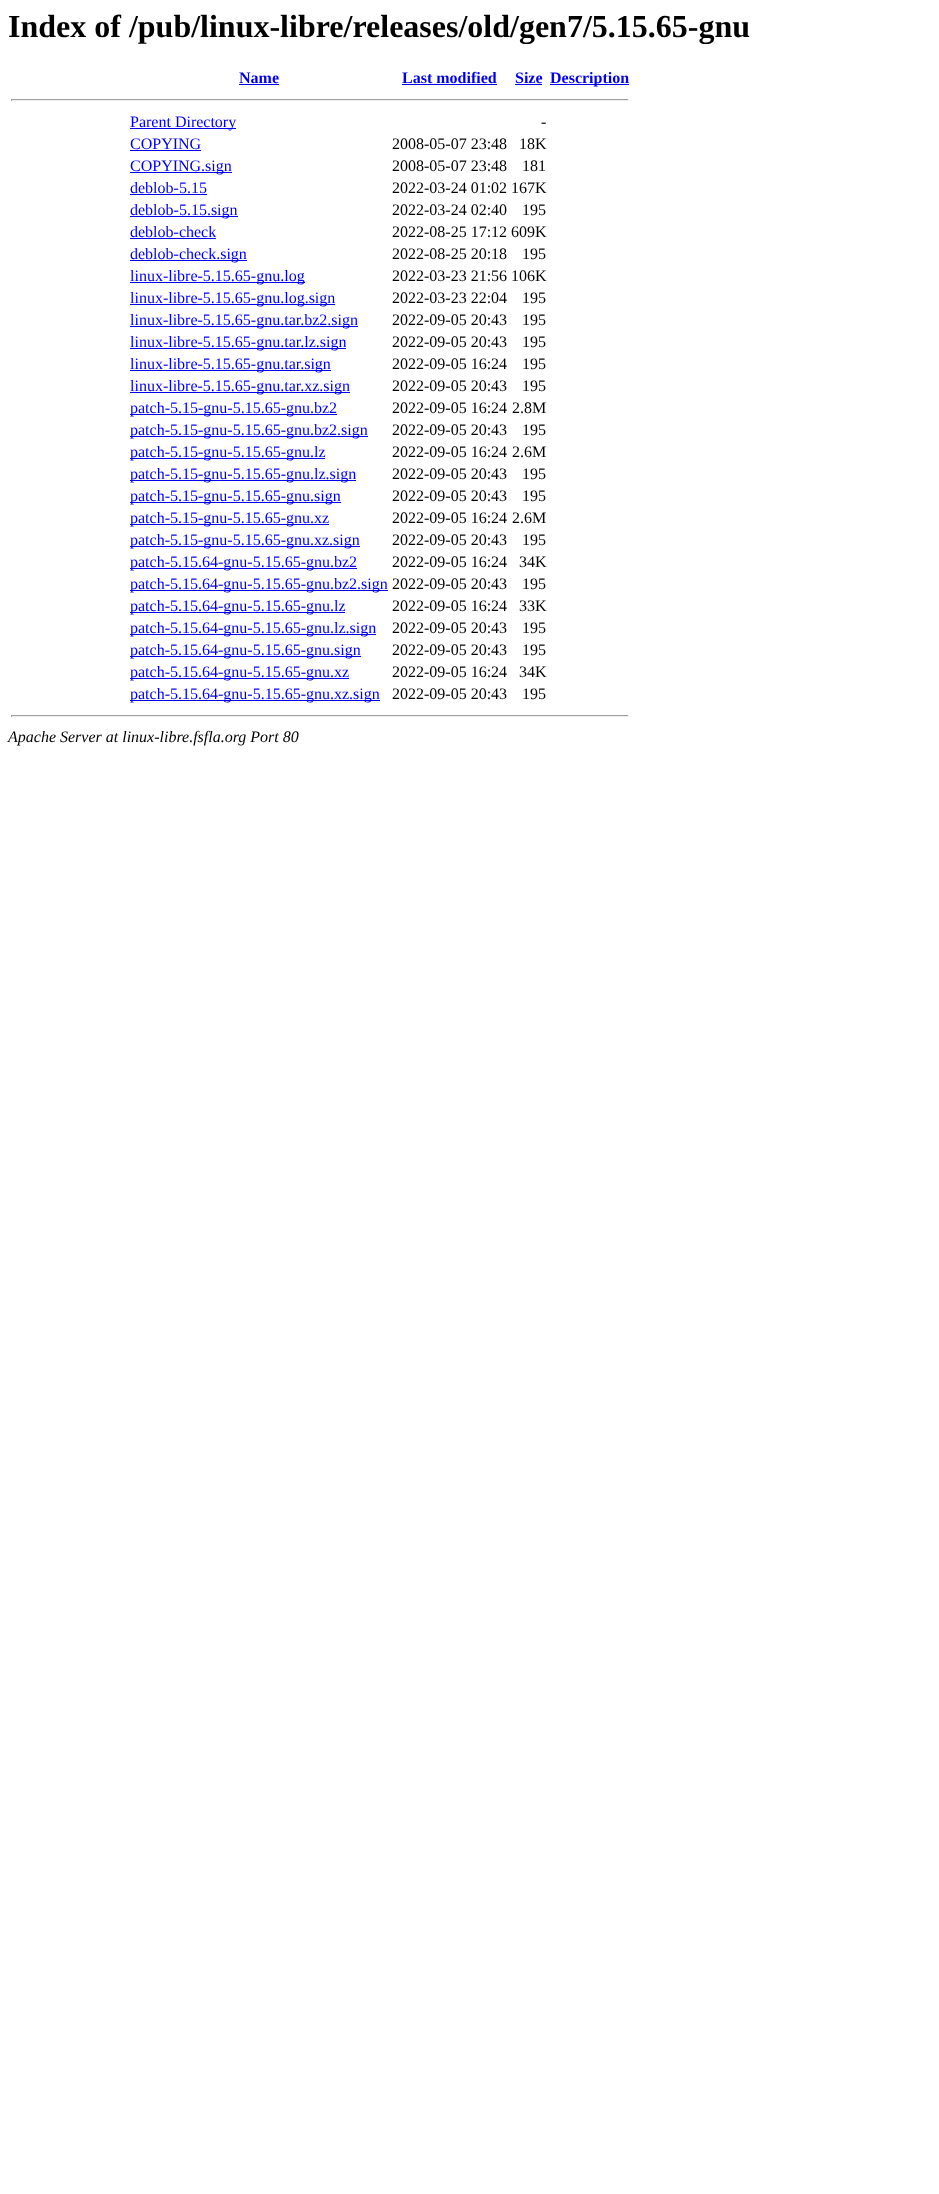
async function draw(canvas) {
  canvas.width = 939;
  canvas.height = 2194;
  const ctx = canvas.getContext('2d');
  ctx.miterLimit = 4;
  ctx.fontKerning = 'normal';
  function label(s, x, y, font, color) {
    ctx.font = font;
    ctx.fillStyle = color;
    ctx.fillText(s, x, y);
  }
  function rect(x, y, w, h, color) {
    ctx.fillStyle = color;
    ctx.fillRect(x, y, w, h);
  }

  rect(0, 0, 939, 2194, '#fff');
  label('Index of /pub/linux-libre/releases/old/gen7/5.15.65-gnu', 8, 37, 'bold 32px Liberation Serif', '#000');
  label('Name', 239, 83, 'bold 16px Liberation Serif', '#00e');
  rect(239, 84, 40, 1, '#00e');
  label('Last modified', 402, 83, 'bold 16px Liberation Serif', '#00e');
  rect(402, 84, 95, 1, '#00e');
  label('Size', 515, 83, 'bold 16px Liberation Serif', '#00e');
  rect(515, 84, 27, 1, '#00e');
  rect(550, 84, 79, 1, '#00e');
  label('Description', 550, 83, 'bold 16px Liberation Serif', '#00e');
  rect(11, 99, 618, 1, '#9f9f9f');
  rect(628, 99, 1, 2, '#eee');
  rect(11, 100, 618, 1, '#eee');
  rect(11, 99, 1, 2, '#9f9f9f');
  rect(130, 128, 106, 1, '#00e');
  label('Parent Directory', 130, 127, '16px Liberation Serif', '#00e');
  label('-', 541, 127, '16px Liberation Serif', '#000');
  label('COPYING', 130, 149, '16px Liberation Serif', '#00e');
  rect(130, 150, 71, 1, '#00e');
  label('2008-05-07 23:48', 392, 149, '16px Liberation Serif', '#000');
  label('18K', 519, 149, '16px Liberation Serif', '#000');
  rect(130, 172, 102, 1, '#00e');
  label('COPYING.sign', 130, 171, '16px Liberation Serif', '#00e');
  label('2008-05-07 23:48', 392, 171, '16px Liberation Serif', '#000');
  label('181', 522, 171, '16px Liberation Serif', '#000');
  label('deblob-5.15', 130, 193, '16px Liberation Serif', '#00e');
  rect(130, 194, 77, 1, '#00e');
  label('2022-03-24 01:02 167K', 392, 193, '16px Liberation Serif', '#000');
  rect(130, 216, 108, 1, '#00e');
  label('deblob-5.15.sign', 130, 215, '16px Liberation Serif', '#00e');
  label('2022-03-24 02:40', 392, 215, '16px Liberation Serif', '#000');
  label('195', 522, 215, '16px Liberation Serif', '#000');
  label('deblob-check', 130, 237, '16px Liberation Serif', '#00e');
  rect(130, 238, 86, 1, '#00e');
  label('2022-08-25 17:12 609K', 392, 237, '16px Liberation Serif', '#000');
  rect(130, 260, 117, 1, '#00e');
  label('deblob-check.sign', 130, 259, '16px Liberation Serif', '#00e');
  label('2022-08-25 20:18', 392, 259, '16px Liberation Serif', '#000');
  label('195', 522, 259, '16px Liberation Serif', '#000');
  rect(130, 282, 175, 1, '#00e');
  label('linux-libre-5.15.65-gnu.log', 130, 281, '16px Liberation Serif', '#00e');
  label('2022-03-23 21:56 106K', 392, 281, '16px Liberation Serif', '#000');
  rect(130, 304, 205, 1, '#00e');
  label('linux-libre-5.15.65-gnu.log.sign', 130, 303, '16px Liberation Serif', '#00e');
  label('2022-03-23 22:04', 392, 303, '16px Liberation Serif', '#000');
  label('195', 522, 303, '16px Liberation Serif', '#000');
  rect(130, 326, 228, 1, '#00e');
  label('linux-libre-5.15.65-gnu.tar.bz2.sign', 130, 325, '16px Liberation Serif', '#00e');
  label('2022-09-05 20:43', 392, 325, '16px Liberation Serif', '#000');
  label('195', 522, 325, '16px Liberation Serif', '#000');
  rect(130, 348, 216, 1, '#00e');
  label('linux-libre-5.15.65-gnu.tar.lz.sign', 130, 347, '16px Liberation Serif', '#00e');
  label('2022-09-05 20:43', 392, 347, '16px Liberation Serif', '#000');
  label('195', 522, 347, '16px Liberation Serif', '#000');
  rect(130, 370, 201, 1, '#00e');
  label('linux-libre-5.15.65-gnu.tar.sign', 130, 369, '16px Liberation Serif', '#00e');
  label('2022-09-05 16:24', 392, 369, '16px Liberation Serif', '#000');
  label('195', 522, 369, '16px Liberation Serif', '#000');
  rect(130, 392, 220, 1, '#00e');
  label('linux-libre-5.15.65-gnu.tar.xz.sign', 130, 391, '16px Liberation Serif', '#00e');
  label('2022-09-05 20:43', 392, 391, '16px Liberation Serif', '#000');
  label('195', 522, 391, '16px Liberation Serif', '#000');
  rect(130, 414, 207, 1, '#00e');
  label('patch-5.15-gnu-5.15.65-gnu.bz2', 130, 413, '16px Liberation Serif', '#00e');
  label('2022-09-05 16:24', 392, 413, '16px Liberation Serif', '#000');
  label('2.8M', 512, 413, '16px Liberation Serif', '#000');
  rect(130, 436, 238, 1, '#00e');
  label('patch-5.15-gnu-5.15.65-gnu.bz2.sign', 130, 435, '16px Liberation Serif', '#00e');
  label('2022-09-05 20:43', 392, 435, '16px Liberation Serif', '#000');
  label('195', 522, 435, '16px Liberation Serif', '#000');
  rect(130, 458, 195, 1, '#00e');
  label('patch-5.15-gnu-5.15.65-gnu.lz', 130, 457, '16px Liberation Serif', '#00e');
  label('2022-09-05 16:24', 392, 457, '16px Liberation Serif', '#000');
  label('2.6M', 512, 457, '16px Liberation Serif', '#000');
  rect(130, 480, 226, 1, '#00e');
  label('patch-5.15-gnu-5.15.65-gnu.lz.sign', 130, 479, '16px Liberation Serif', '#00e');
  label('2022-09-05 20:43', 392, 479, '16px Liberation Serif', '#000');
  label('195', 522, 479, '16px Liberation Serif', '#000');
  rect(130, 502, 211, 1, '#00e');
  label('patch-5.15-gnu-5.15.65-gnu.sign', 130, 501, '16px Liberation Serif', '#00e');
  label('2022-09-05 20:43', 392, 501, '16px Liberation Serif', '#000');
  label('195', 522, 501, '16px Liberation Serif', '#000');
  rect(130, 524, 199, 1, '#00e');
  label('patch-5.15-gnu-5.15.65-gnu.xz', 130, 523, '16px Liberation Serif', '#00e');
  label('2022-09-05 16:24', 392, 523, '16px Liberation Serif', '#000');
  label('2.6M', 512, 523, '16px Liberation Serif', '#000');
  rect(130, 546, 230, 1, '#00e');
  label('patch-5.15-gnu-5.15.65-gnu.xz.sign', 130, 545, '16px Liberation Serif', '#00e');
  label('2022-09-05 20:43', 392, 545, '16px Liberation Serif', '#000');
  label('195', 522, 545, '16px Liberation Serif', '#000');
  rect(130, 568, 227, 1, '#00e');
  label('patch-5.15.64-gnu-5.15.65-gnu.bz2', 130, 567, '16px Liberation Serif', '#00e');
  label('2022-09-05 16:24', 392, 567, '16px Liberation Serif', '#000');
  label('34K', 519, 567, '16px Liberation Serif', '#000');
  rect(130, 590, 258, 1, '#00e');
  label('patch-5.15.64-gnu-5.15.65-gnu.bz2.sign', 130, 589, '16px Liberation Serif', '#00e');
  label('2022-09-05 20:43', 392, 589, '16px Liberation Serif', '#000');
  label('195', 522, 589, '16px Liberation Serif', '#000');
  rect(130, 612, 215, 1, '#00e');
  label('patch-5.15.64-gnu-5.15.65-gnu.lz', 130, 611, '16px Liberation Serif', '#00e');
  label('2022-09-05 16:24', 392, 611, '16px Liberation Serif', '#000');
  label('33K', 519, 611, '16px Liberation Serif', '#000');
  rect(130, 634, 246, 1, '#00e');
  label('patch-5.15.64-gnu-5.15.65-gnu.lz.sign', 130, 633, '16px Liberation Serif', '#00e');
  label('2022-09-05 20:43', 392, 633, '16px Liberation Serif', '#000');
  label('195', 522, 633, '16px Liberation Serif', '#000');
  rect(130, 656, 231, 1, '#00e');
  label('patch-5.15.64-gnu-5.15.65-gnu.sign', 130, 655, '16px Liberation Serif', '#00e');
  label('2022-09-05 20:43', 392, 655, '16px Liberation Serif', '#000');
  label('195', 522, 655, '16px Liberation Serif', '#000');
  rect(130, 678, 219, 1, '#00e');
  label('patch-5.15.64-gnu-5.15.65-gnu.xz', 130, 677, '16px Liberation Serif', '#00e');
  label('2022-09-05 16:24', 392, 677, '16px Liberation Serif', '#000');
  label('34K', 519, 677, '16px Liberation Serif', '#000');
  rect(130, 700, 250, 1, '#00e');
  label('patch-5.15.64-gnu-5.15.65-gnu.xz.sign', 130, 699, '16px Liberation Serif', '#00e');
  label('2022-09-05 20:43', 392, 699, '16px Liberation Serif', '#000');
  label('195', 522, 699, '16px Liberation Serif', '#000');
  rect(11, 715, 618, 1, '#9f9f9f');
  rect(628, 715, 1, 2, '#eee');
  rect(11, 716, 618, 1, '#eee');
  rect(11, 715, 1, 2, '#9f9f9f');
  label('Apache Server at linux-libre.fsfla.org Port 80', 8, 742, 'italic 16px Liberation Serif', '#000');
}

draw(document.querySelector('canvas'));
